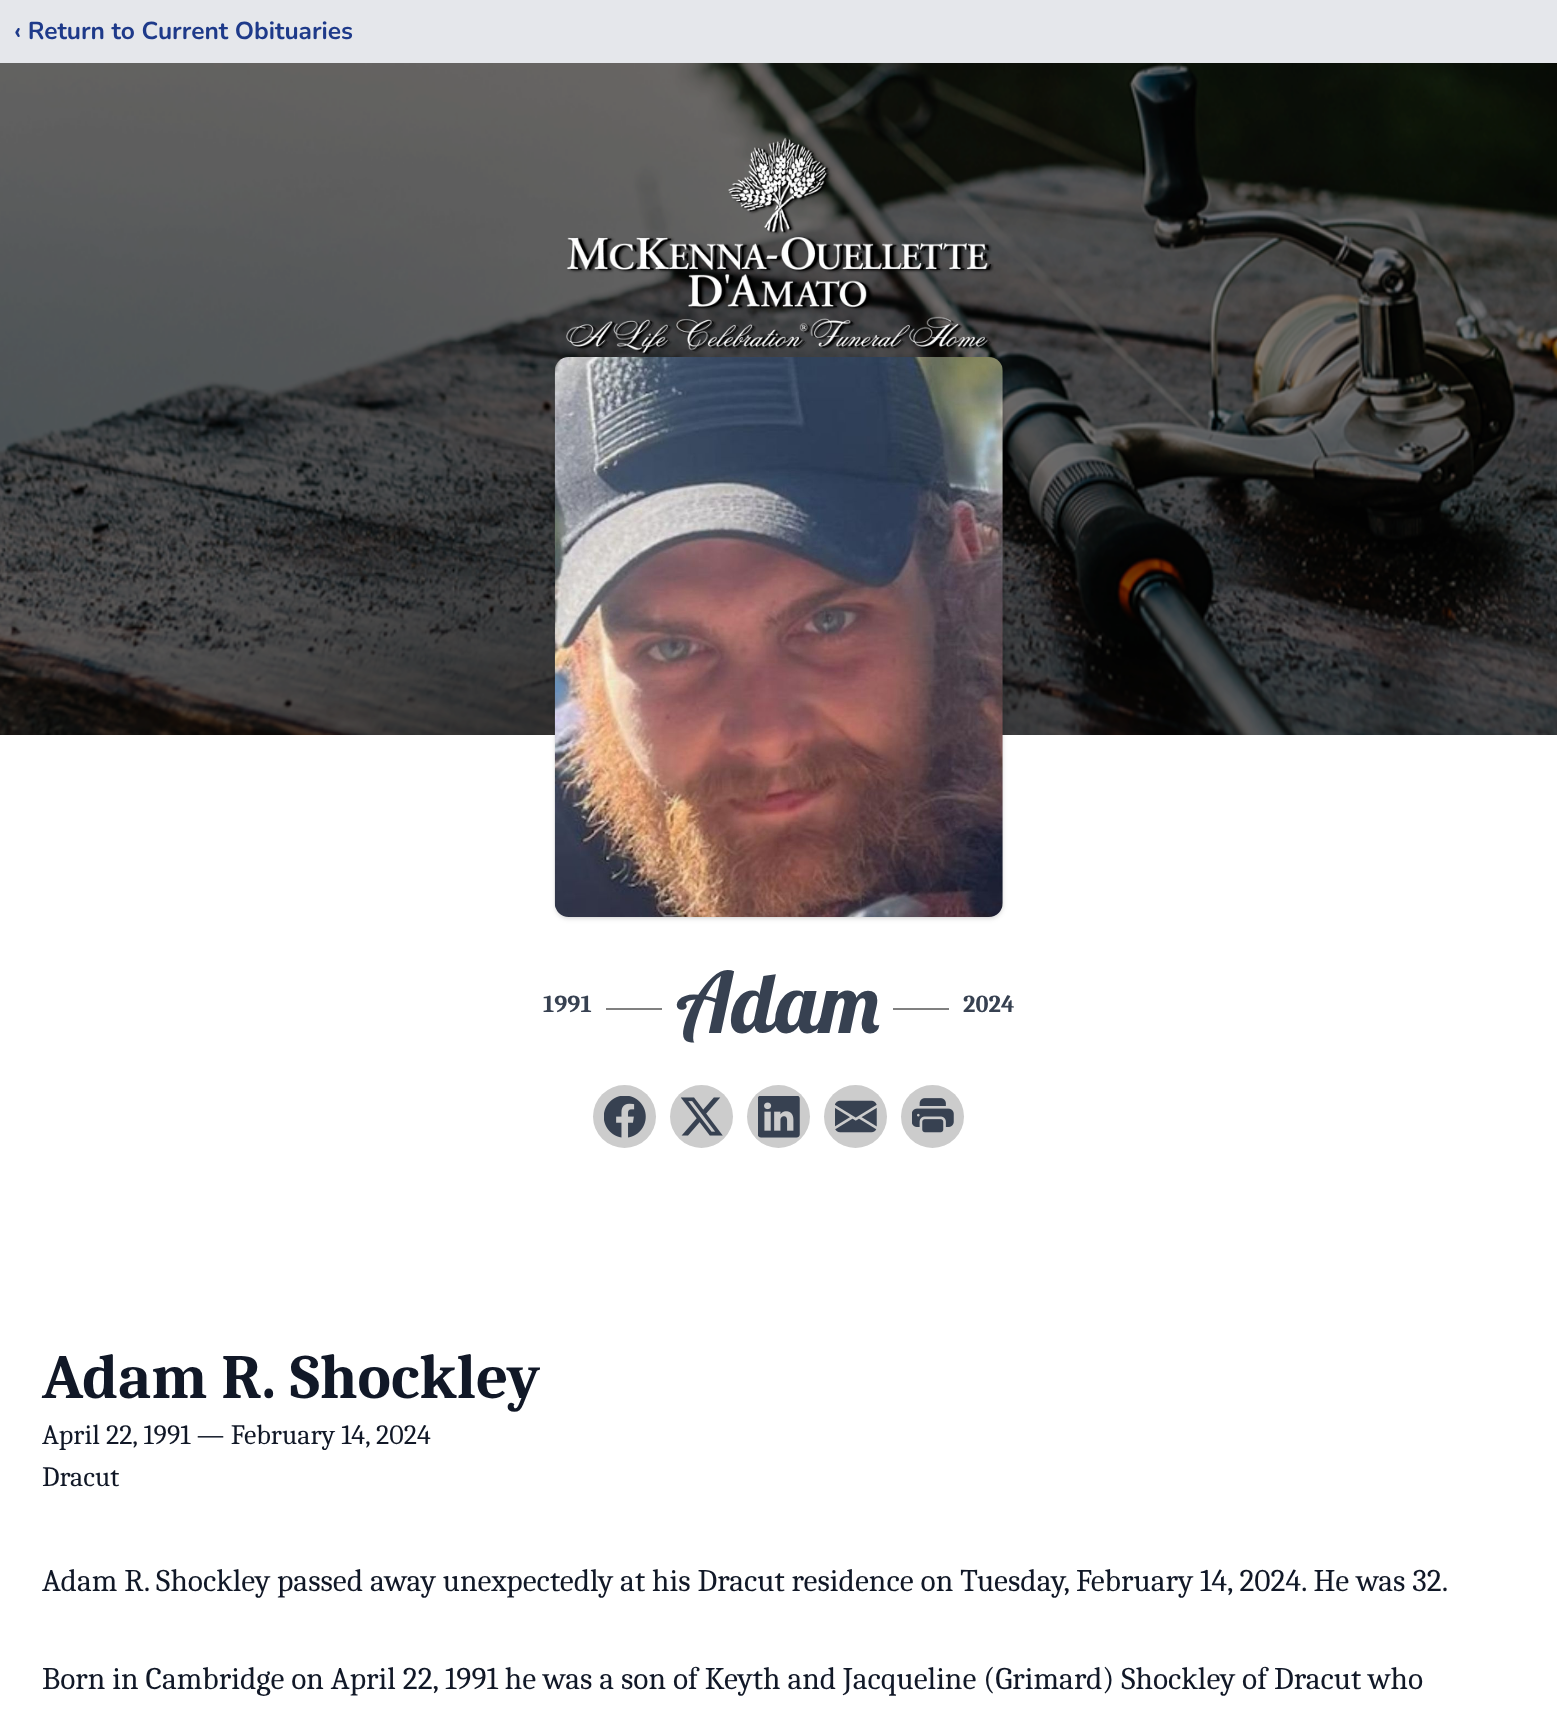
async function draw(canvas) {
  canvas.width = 1557;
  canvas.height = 1736;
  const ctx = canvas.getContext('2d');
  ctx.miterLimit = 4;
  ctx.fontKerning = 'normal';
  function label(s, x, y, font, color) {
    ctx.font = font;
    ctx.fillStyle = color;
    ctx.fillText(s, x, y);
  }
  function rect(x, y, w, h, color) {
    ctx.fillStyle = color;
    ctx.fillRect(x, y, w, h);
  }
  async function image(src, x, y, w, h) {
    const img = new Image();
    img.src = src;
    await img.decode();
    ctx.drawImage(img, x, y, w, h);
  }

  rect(0, 0, 1557, 1736, '#fff');
  rect(0, 0, 1557, 63, '#e5e7eb');
  label('‹ Return to Current Obituaries', 14, 39, 'bold 24.5px Nunito', '#1e3a8a');
  await image('assets/img1.png', 0, 63, 1557, 672);
  await image('assets/img2.png', 566, 137, 428, 218);
  ctx.fillStyle = '#0000001a';
  ctx.filter = 'blur(2px)';
  ctx.beginPath();
  ctx.roundRect(557, 361, 444, 556, 12);
  ctx.fill();
  ctx.filter = 'none';
  ctx.filter = 'blur(2.5px)';
  ctx.beginPath();
  ctx.roundRect(555, 359, 448, 560, 14);
  ctx.fill();
  ctx.filter = 'none';
  await image('assets/img3.png', 554, 357, 449, 560);
  label('1991', 543, 1012, 'bold 24.5px Caladea', '#374151');
  rect(606, 1008, 56, 2, '#808080');
  label('Adam', 676, 1033, '84px Lobster', '#374151');
  rect(893, 1008, 56, 2, '#808080');
  label('2024', 963, 1012, 'bold 24.5px Caladea', '#374151');
  ctx.fillStyle = '#ccc';
  ctx.beginPath();
  ctx.arc(624.5, 1116.5, 31.5, 0, 2 * Math.PI);
  ctx.fill();
  await image('assets/img4.png', 604, 1096, 42, 42);
  ctx.beginPath();
  ctx.arc(701.5, 1116.5, 31.5, 0, 2 * Math.PI);
  ctx.fill();
  await image('assets/img5.png', 681, 1097, 42, 39);
  ctx.beginPath();
  ctx.arc(778.5, 1116.5, 31.5, 0, 2 * Math.PI);
  ctx.fill();
  await image('assets/img6.png', 758, 1096, 42, 42);
  ctx.beginPath();
  ctx.arc(855.5, 1116.5, 31.5, 0, 2 * Math.PI);
  ctx.fill();
  await image('assets/img7.png', 835, 1100, 42, 33);
  ctx.beginPath();
  ctx.arc(932.5, 1116.5, 31.5, 0, 2 * Math.PI);
  ctx.fill();
  await image('assets/img8.png', 912, 1098, 42, 35);
  label('Adam R. Shockley', 42, 1398, 'bold 63px Caladea', '#111827');
  label('April 22, 1991 — February 14, 2024', 42, 1444, '28px Caladea', '#111827');
  label('Dracut', 42, 1486, '28px Caladea', '#111827');
  label('Adam R. Shockley passed away unexpectedly at his Dracut residence on Tuesday, February 14, 2024. He was 32.', 42, 1591, '31.5px Caladea', '#111827');
  label('Born in Cambridge on April 22, 1991 he was a son of Keyth and Jacqueline (Grimard) Shockley of Dracut who', 42, 1689, '31.5px Caladea', '#111827');
}

draw(document.querySelector('canvas'));
